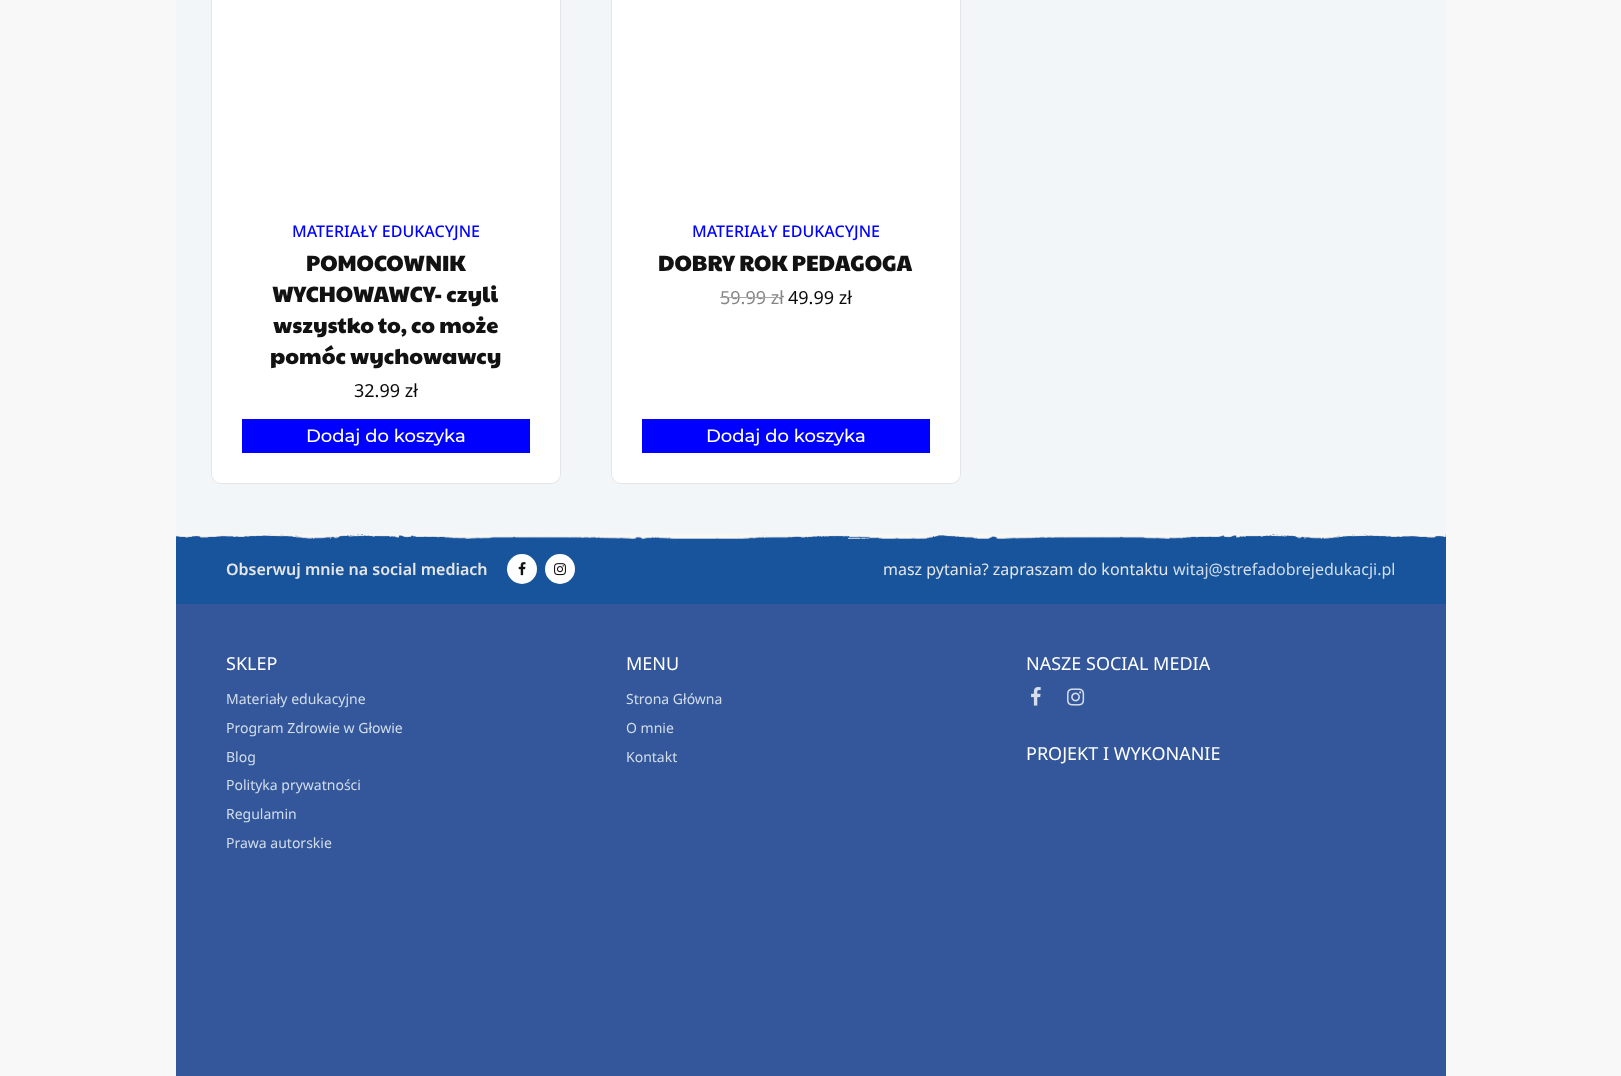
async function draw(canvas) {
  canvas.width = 1621;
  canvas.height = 1076;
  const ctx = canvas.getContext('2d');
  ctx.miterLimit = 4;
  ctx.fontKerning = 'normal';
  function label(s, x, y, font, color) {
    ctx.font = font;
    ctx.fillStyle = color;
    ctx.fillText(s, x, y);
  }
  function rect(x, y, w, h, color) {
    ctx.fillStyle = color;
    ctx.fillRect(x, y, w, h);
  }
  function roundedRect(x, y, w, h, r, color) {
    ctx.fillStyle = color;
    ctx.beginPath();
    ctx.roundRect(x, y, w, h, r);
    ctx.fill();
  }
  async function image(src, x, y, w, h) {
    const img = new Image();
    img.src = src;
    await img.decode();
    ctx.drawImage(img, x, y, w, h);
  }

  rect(0, 0, 1621, 1076, '#f8f8f8');
  rect(176, 0, 1270, 534, '#f2f6f9');
  roundedRect(211, -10, 350, 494, 10, '#fff');
  ctx.beginPath();
  ctx.roundRect(211.5, -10.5, 349, 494, 9.5);
  ctx.strokeStyle = '#0000001a';
  ctx.stroke();
  label('MATERIAŁY EDUKACYJNE', 292, 237, '500 16px Noto Sans', '#00f');
  label('POMOCOWNIK', 306, 271, '22px Paytone One', '#121212');
  label('WYCHOWAWCY- czyli', 272, 302, '22px Paytone One', '#121212');
  label('wszystko to, co może', 273, 333, '22px Paytone One', '#121212');
  label('pomóc wychowawcy', 270, 364, '22px Paytone One', '#121212');
  label('32.99 zł', 354, 397, '18px Noto Sans', '#0a0a0a');
  rect(242, 419, 288, 34, '#00f');
  label('Dodaj do koszyka', 306, 442, '500 18px Montserrat', '#fff');
  roundedRect(611, -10, 350, 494, 10, '#fff');
  ctx.beginPath();
  ctx.roundRect(611.5, -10.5, 349, 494, 9.5);
  ctx.stroke();
  label('MATERIAŁY EDUKACYJNE', 692, 237, '500 16px Noto Sans', '#00f');
  label('DOBRY ROK PEDAGOGA', 658, 271, '22px Paytone One', '#121212');
  label('59.99 zł', 720, 304, '18px Noto Sans', '#858585');
  rect(720, 297, 63, 1, '#a7a7a7');
  label('49.99 zł', 788, 304, '18px Noto Sans', '#0a0a0a');
  rect(642, 419, 288, 34, '#00f');
  label('Dodaj do koszyka', 706, 442, '500 18px Montserrat', '#fff');
  rect(176, 604, 1270, 472, '#33579a');
  rect(176, 534, 1270, 70, '#17549c');
  await image('assets/img1.png', 176, 534, 1270, 6);
  label('Obserwuj mnie na social mediach', 226, 575, '600 16px Noto Sans', '#e6e6e6');
  ctx.fillStyle = '#fff';
  ctx.beginPath();
  ctx.arc(522, 569, 15, 0, 2 * Math.PI);
  ctx.fill();
  await image('assets/img2.png', 518, 562, 8, 14);
  ctx.beginPath();
  ctx.arc(560, 569, 15, 0, 2 * Math.PI);
  ctx.fill();
  await image('assets/img3.png', 554, 563, 12, 13);
  label('masz pytania? zapraszam do kontaktu', 883, 575, '16px Noto Sans', '#e6e6e6');
  label('witaj@strefadobrejedukacji.pl', 1173, 575, '16px Noto Sans', '#d1ddeb');
  label('SKLEP', 226, 670, '18px Noto Sans', '#fff');
  label('Materiały edukacyjne', 226, 704, '14px Noto Sans', '#d1ddeb');
  label('Program Zdrowie w Głowie', 226, 733, '14px Noto Sans', '#d1ddeb');
  label('Blog', 226, 762, '14px Noto Sans', '#d1ddeb');
  label('Polityka prywatności', 226, 790, '14px Noto Sans', '#d1ddeb');
  label('Regulamin', 226, 819, '14px Noto Sans', '#d1ddeb');
  label('Prawa autorskie', 226, 848, '14px Noto Sans', '#d1ddeb');
  label('MENU', 626, 670, '18px Noto Sans', '#fff');
  label('Strona Główna', 626, 704, '14px Noto Sans', '#d1ddeb');
  label('O mnie', 626, 733, '14px Noto Sans', '#d1ddeb');
  label('Kontakt', 626, 762, '14px Noto Sans', '#d1ddeb');
  label('NASZE SOCIAL MEDIA', 1026, 670, '18px Noto Sans', '#fff');
  await image('assets/img4.png', 1031, 687, 10, 19);
  await image('assets/img5.png', 1067, 688, 18, 18);
  label('PROJEKT I WYKONANIE', 1026, 760, '18px Noto Sans', '#fff');
}

draw(document.querySelector('canvas'));
